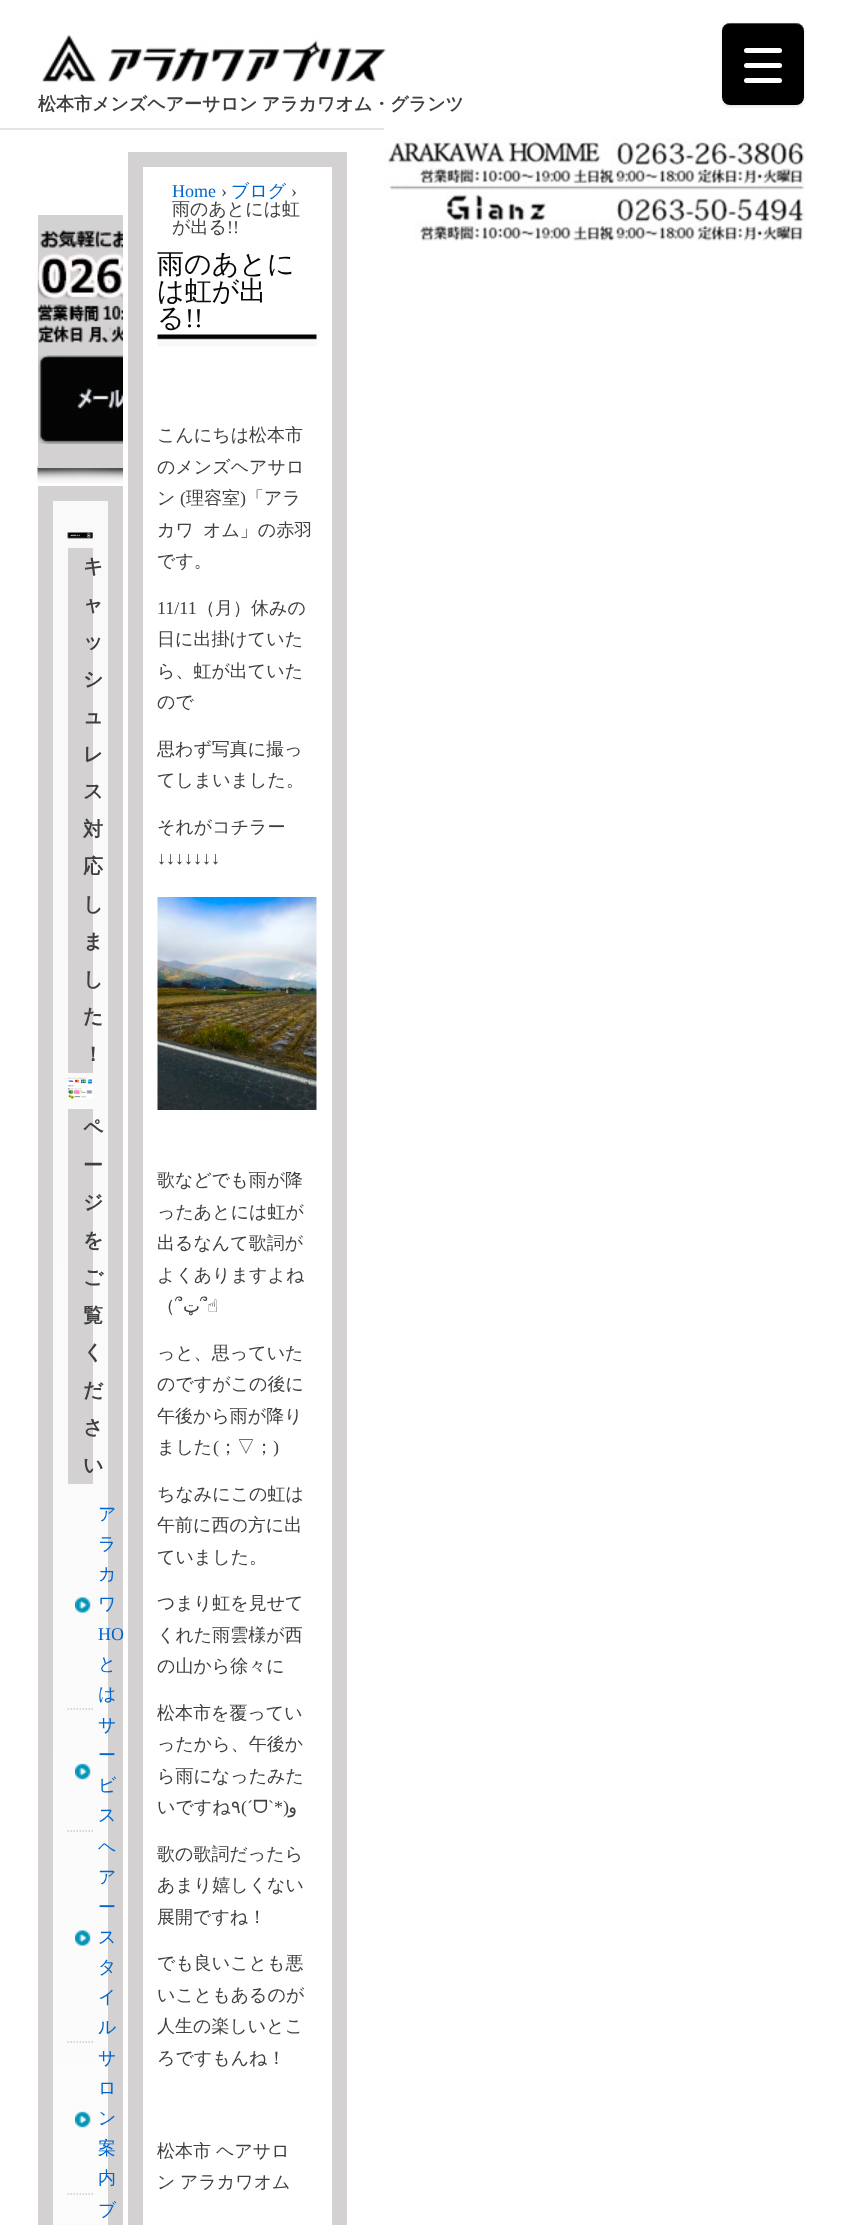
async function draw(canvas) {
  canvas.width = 845;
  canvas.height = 2225;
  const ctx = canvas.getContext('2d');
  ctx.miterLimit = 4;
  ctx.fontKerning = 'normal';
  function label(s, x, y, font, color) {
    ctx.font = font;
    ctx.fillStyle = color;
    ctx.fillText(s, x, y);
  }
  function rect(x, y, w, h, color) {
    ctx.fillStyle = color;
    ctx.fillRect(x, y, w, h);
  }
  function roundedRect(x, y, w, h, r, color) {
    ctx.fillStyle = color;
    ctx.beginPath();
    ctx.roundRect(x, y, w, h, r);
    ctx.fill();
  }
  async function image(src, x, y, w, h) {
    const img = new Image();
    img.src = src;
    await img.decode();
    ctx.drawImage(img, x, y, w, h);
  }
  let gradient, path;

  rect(0, 0, 845, 2225, '#fff');
  await image('assets/img1.png', 41, 34, 345, 49);
  ctx.wordSpacing = '-1px';
  label('松本市メンズヘアーサロン アラカワオム・グランツ', 38, 110, 'bold 18px WenQuanYi Zen Hei', '#404040');
  await image('assets/img2.png', 384, 138, 422, 103);
  ctx.fillStyle = '#0000001a';
  ctx.filter = 'blur(1.5px)';
  ctx.beginPath();
  ctx.roundRect(722, 24, 82, 83, 8);
  ctx.fill();
  ctx.filter = 'none';
  roundedRect(722, 23, 82, 82, 8, '#000');
  ctx.fillStyle = '#ffffff4d';
  path = new Path2D('M729 24H796C801 24 804 27 804 32C804 21 793 23 785 23H741C733 23 722 21 722 32C722 27 725 24 729 24Z');
  ctx.fill(path);
  ctx.fillStyle = '#00000012';
  path = new Path2D('M722 96C722 107 733 105 741 105H785C793 105 804 107 804 96C804 100 801 104 796 104H729C725 104 722 100 722 96Z');
  ctx.fill(path);
  roundedRect(744, 63, 38, 5, 2.5, '#fff');
  roundedRect(744, 48, 38, 5, 2.5, '#fff');
  roundedRect(744, 78, 38, 5, 2.5, '#fff');
  rect(0, 128, 384, 2, '#e5e5e5');
  await image('assets/img3.png', 37, 466, 86, 17);
  rect(38, 215, 85, 253, '#d3d1d1');
  await image('assets/img4.png', 37, 229, 86, 115);
  await image('assets/img5.png', 38, 355, 85, 89);
  rect(38, 486, 85, 1739, '#d3d1d1');
  gradient = ctx.createLinearGradient(80, 501, 80, 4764);
  gradient.addColorStop(0, '#f9f9f9');
  gradient.addColorStop(1, '#fff');
  ctx.fillStyle = gradient;
  ctx.fillRect(53, 501, 55, 1724);
  await image('assets/img6.png', 67, 532, 26, 7);
  rect(68, 548, 25, 525, '#d3d1d1');
  ctx.wordSpacing = '0px';
  label('キ', 83, 573, 'bold 20px WenQuanYi Zen Hei', '#404040');
  label('ャ', 83, 611, 'bold 20px WenQuanYi Zen Hei', '#404040');
  label('ッ', 83, 648, 'bold 20px WenQuanYi Zen Hei', '#404040');
  label('シ', 83, 686, 'bold 20px WenQuanYi Zen Hei', '#404040');
  label('ュ', 83, 723, 'bold 20px WenQuanYi Zen Hei', '#404040');
  label('レ', 83, 761, 'bold 20px WenQuanYi Zen Hei', '#404040');
  label('ス', 83, 798, 'bold 20px WenQuanYi Zen Hei', '#404040');
  label('対', 83, 836, 'bold 20px WenQuanYi Zen Hei', '#404040');
  label('応', 83, 873, 'bold 20px WenQuanYi Zen Hei', '#404040');
  label('し', 83, 911, 'bold 20px WenQuanYi Zen Hei', '#404040');
  label('ま', 83, 948, 'bold 20px WenQuanYi Zen Hei', '#404040');
  label('し', 83, 986, 'bold 20px WenQuanYi Zen Hei', '#404040');
  label('た', 83, 1023, 'bold 20px WenQuanYi Zen Hei', '#404040');
  label('！', 83, 1061, 'bold 20px WenQuanYi Zen Hei', '#404040');
  await image('assets/img7.png', 67, 1077, 26, 22);
  rect(68, 1109, 25, 375, '#d3d1d1');
  label('ペ', 83, 1134, 'bold 20px WenQuanYi Zen Hei', '#404040');
  label('ー', 83, 1172, 'bold 20px WenQuanYi Zen Hei', '#404040');
  label('ジ', 83, 1209, 'bold 20px WenQuanYi Zen Hei', '#404040');
  label('を', 83, 1247, 'bold 20px WenQuanYi Zen Hei', '#404040');
  label('ご', 83, 1284, 'bold 20px WenQuanYi Zen Hei', '#404040');
  label('覧', 83, 1322, 'bold 20px WenQuanYi Zen Hei', '#404040');
  label('く', 83, 1359, 'bold 20px WenQuanYi Zen Hei', '#404040');
  label('だ', 83, 1397, 'bold 20px WenQuanYi Zen Hei', '#404040');
  label('さ', 83, 1434, 'bold 20px WenQuanYi Zen Hei', '#404040');
  label('い', 83, 1472, 'bold 20px WenQuanYi Zen Hei', '#404040');
  path = new Path2D('M67.5 1709H93');
  ctx.strokeStyle = '#ccc';
  ctx.lineWidth = 1.5;
  ctx.setLineDash([1.5, 1.5]);
  ctx.stroke(path);
  await image('assets/img8.png', 75, 1597, 16, 16);
  label('ア', 98, 1520, '500 18px WenQuanYi Zen Hei', '#06c');
  label('ラ', 98, 1550, '500 18px WenQuanYi Zen Hei', '#06c');
  label('カ', 98, 1580, '500 18px WenQuanYi Zen Hei', '#06c');
  label('ワ', 98, 1610, '500 18px WenQuanYi Zen Hei', '#06c');
  label('HO', 98, 1640, '18px Liberation Serif', '#06c');
  label('と', 98, 1670, '500 18px WenQuanYi Zen Hei', '#06c');
  label('は', 98, 1700, '500 18px WenQuanYi Zen Hei', '#06c');
  path = new Path2D('M67.5 1831H93');
  ctx.stroke(path);
  await image('assets/img9.png', 75, 1763, 16, 17);
  label('サ', 98, 1731, '500 18px WenQuanYi Zen Hei', '#06c');
  label('ー', 98, 1761, '500 18px WenQuanYi Zen Hei', '#06c');
  label('ビ', 98, 1791, '500 18px WenQuanYi Zen Hei', '#06c');
  label('ス', 98, 1821, '500 18px WenQuanYi Zen Hei', '#06c');
  path = new Path2D('M67.5 2042H93');
  ctx.stroke(path);
  await image('assets/img8.png', 75, 1930, 16, 16);
  label('ヘ', 98, 1853, '500 18px WenQuanYi Zen Hei', '#06c');
  label('ア', 98, 1883, '500 18px WenQuanYi Zen Hei', '#06c');
  label('ー', 98, 1913, '500 18px WenQuanYi Zen Hei', '#06c');
  label('ス', 98, 1943, '500 18px WenQuanYi Zen Hei', '#06c');
  label('タ', 98, 1973, '500 18px WenQuanYi Zen Hei', '#06c');
  label('イ', 98, 2003, '500 18px WenQuanYi Zen Hei', '#06c');
  label('ル', 98, 2033, '500 18px WenQuanYi Zen Hei', '#06c');
  path = new Path2D('M67.5 2194H93');
  ctx.stroke(path);
  await image('assets/img9.png', 75, 2111, 16, 17);
  label('サ', 98, 2064, '500 18px WenQuanYi Zen Hei', '#06c');
  label('ロ', 98, 2094, '500 18px WenQuanYi Zen Hei', '#06c');
  label('ン', 98, 2124, '500 18px WenQuanYi Zen Hei', '#06c');
  label('案', 98, 2154, '500 18px WenQuanYi Zen Hei', '#06c');
  label('内', 98, 2184, '500 18px WenQuanYi Zen Hei', '#06c');
  label('ブ', 98, 2216, '500 18px WenQuanYi Zen Hei', '#06c');
  rect(128, 152, 219, 2073, '#d3d1d1');
  rect(143, 167, 189, 2058, '#fff');
  label('Home', 172, 197, '18px Liberation Serif', '#06c');
  label('›', 221, 197, '18px Liberation Serif', '#404040');
  label('ブログ', 231, 197, '500 18px WenQuanYi Zen Hei', '#06c');
  label('›', 291, 197, '18px Liberation Serif', '#404040');
  label('雨のあとには虹', 172, 215, '500 18px WenQuanYi Zen Hei', '#404040');
  label('が出る', 172, 233, '500 18px WenQuanYi Zen Hei', '#404040');
  label('!!', 227, 233, '18px Liberation Serif', '#404040');
  await image('assets/img10.png', 157, 334, 160, 13);
  label('雨のあとに', 157, 273, '500 27px WenQuanYi Zen Hei', '#080808');
  label('は虹が出', 157, 300, '500 27px WenQuanYi Zen Hei', '#080808');
  label('る', 157, 327, '500 27px WenQuanYi Zen Hei', '#080808');
  label('!!', 185, 327, '27px Liberation Serif', '#080808');
  label('こんにちは松本市', 157, 441, '500 18px WenQuanYi Zen Hei', '#404040');
  label('のメンズヘアサロ', 157, 473, '500 18px WenQuanYi Zen Hei', '#404040');
  label('ン', 157, 504, '500 18px WenQuanYi Zen Hei', '#404040');
  label('(', 180, 504, '18px Liberation Serif', '#404040');
  label('理容室', 186, 504, '500 18px WenQuanYi Zen Hei', '#404040');
  label(')', 240, 504, '18px Liberation Serif', '#404040');
  label('「アラ', 246, 504, '500 18px WenQuanYi Zen Hei', '#404040');
  label('カワ', 157, 536, '500 18px WenQuanYi Zen Hei', '#404040');
  label('オム」の赤羽', 203, 536, '500 18px WenQuanYi Zen Hei', '#404040');
  label('です。', 157, 567, '500 18px WenQuanYi Zen Hei', '#404040');
  label('11/11', 157, 614, '18px Liberation Serif', '#404040');
  label('（月）休みの', 197, 614, '500 18px WenQuanYi Zen Hei', '#404040');
  label('日に出掛けていた', 157, 645, '500 18px WenQuanYi Zen Hei', '#404040');
  label('ら、虹が出ていた', 157, 677, '500 18px WenQuanYi Zen Hei', '#404040');
  label('ので', 157, 708, '500 18px WenQuanYi Zen Hei', '#404040');
  label('思わず写真に撮っ', 157, 755, '500 18px WenQuanYi Zen Hei', '#404040');
  label('てしまいました。', 157, 786, '500 18px WenQuanYi Zen Hei', '#404040');
  label('それがコチラー', 157, 833, '500 18px WenQuanYi Zen Hei', '#404040');
  label('↓↓↓↓↓↓↓', 157, 864, '18px Liberation Serif', '#404040');
  await image('assets/img11.png', 157, 897, 160, 213);
  label('歌などでも雨が降', 157, 1186, '500 18px WenQuanYi Zen Hei', '#404040');
  label('ったあとには虹が', 157, 1218, '500 18px WenQuanYi Zen Hei', '#404040');
  label('出るなんて歌詞が', 157, 1249, '500 18px WenQuanYi Zen Hei', '#404040');
  label('よくありますよね', 157, 1281, '500 18px WenQuanYi Zen Hei', '#404040');
  label('（', 157, 1312, '500 18px WenQuanYi Zen Hei', '#404040');
  label('՞', 175, 1312, '18px DejaVu Sans', '#404040');
  ctx.direction = 'rtl';
  label('ټ', 200, 1312, '18px DejaVu Sans', '#404040');
  ctx.direction = 'ltr';
  label('՞☝', 200, 1312, '18px DejaVu Sans', '#404040');
  label('っと、思っていた', 157, 1359, '500 18px WenQuanYi Zen Hei', '#404040');
  label('のですがこの後に', 157, 1390, '500 18px WenQuanYi Zen Hei', '#404040');
  label('午後から雨が降り', 157, 1422, '500 18px WenQuanYi Zen Hei', '#404040');
  label('ました', 157, 1453, '500 18px WenQuanYi Zen Hei', '#404040');
  label('(', 213, 1453, '18px Liberation Serif', '#404040');
  label('；▽；', 219, 1453, '500 18px WenQuanYi Zen Hei', '#404040');
  label(')', 273, 1453, '18px Liberation Serif', '#404040');
  label('ちなみにこの虹は', 157, 1500, '500 18px WenQuanYi Zen Hei', '#404040');
  label('午前に西の方に出', 157, 1531, '500 18px WenQuanYi Zen Hei', '#404040');
  label('ていました。', 157, 1563, '500 18px WenQuanYi Zen Hei', '#404040');
  label('つまり虹を見せて', 157, 1609, '500 18px WenQuanYi Zen Hei', '#404040');
  label('くれた雨雲様が西', 157, 1641, '500 18px WenQuanYi Zen Hei', '#404040');
  label('の山から徐々に', 157, 1672, '500 18px WenQuanYi Zen Hei', '#404040');
  label('松本市を覆ってい', 157, 1719, '500 18px WenQuanYi Zen Hei', '#404040');
  label('ったから、午後か', 157, 1750, '500 18px WenQuanYi Zen Hei', '#404040');
  label('ら雨になったみた', 157, 1782, '500 18px WenQuanYi Zen Hei', '#404040');
  label('いですね', 157, 1813, '500 18px WenQuanYi Zen Hei', '#404040');
  label('٩', 231, 1813, '18px DejaVu Sans', '#404040');
  label('(ˊ', 241, 1813, '18px Liberation Serif', '#404040');
  label('ᗜ', 253, 1813, '18px FreeSans', '#404040');
  label('ˋ*)', 268, 1813, '18px Liberation Serif', '#404040');
  ctx.direction = 'rtl';
  label('و', 297, 1813, '18px DejaVu Sans', '#404040');
  ctx.direction = 'ltr';
  label('歌の歌詞だったら', 157, 1860, '500 18px WenQuanYi Zen Hei', '#404040');
  label('あまり嬉しくない', 157, 1891, '500 18px WenQuanYi Zen Hei', '#404040');
  label('展開ですね！', 157, 1923, '500 18px WenQuanYi Zen Hei', '#404040');
  label('でも良いことも悪', 157, 1969, '500 18px WenQuanYi Zen Hei', '#404040');
  label('いこともあるのが', 157, 2001, '500 18px WenQuanYi Zen Hei', '#404040');
  label('人生の楽しいとこ', 157, 2032, '500 18px WenQuanYi Zen Hei', '#404040');
  label('ろですもんね！', 157, 2064, '500 18px WenQuanYi Zen Hei', '#404040');
  label('松本市', 157, 2157, '500 18px WenQuanYi Zen Hei', '#404040');
  label('ヘアサロ', 216, 2157, '500 18px WenQuanYi Zen Hei', '#404040');
  label('ン', 157, 2188, '500 18px WenQuanYi Zen Hei', '#404040');
  label('アラカワオム', 180, 2188, '500 18px WenQuanYi Zen Hei', '#404040');
}

draw(document.querySelector('canvas'));
